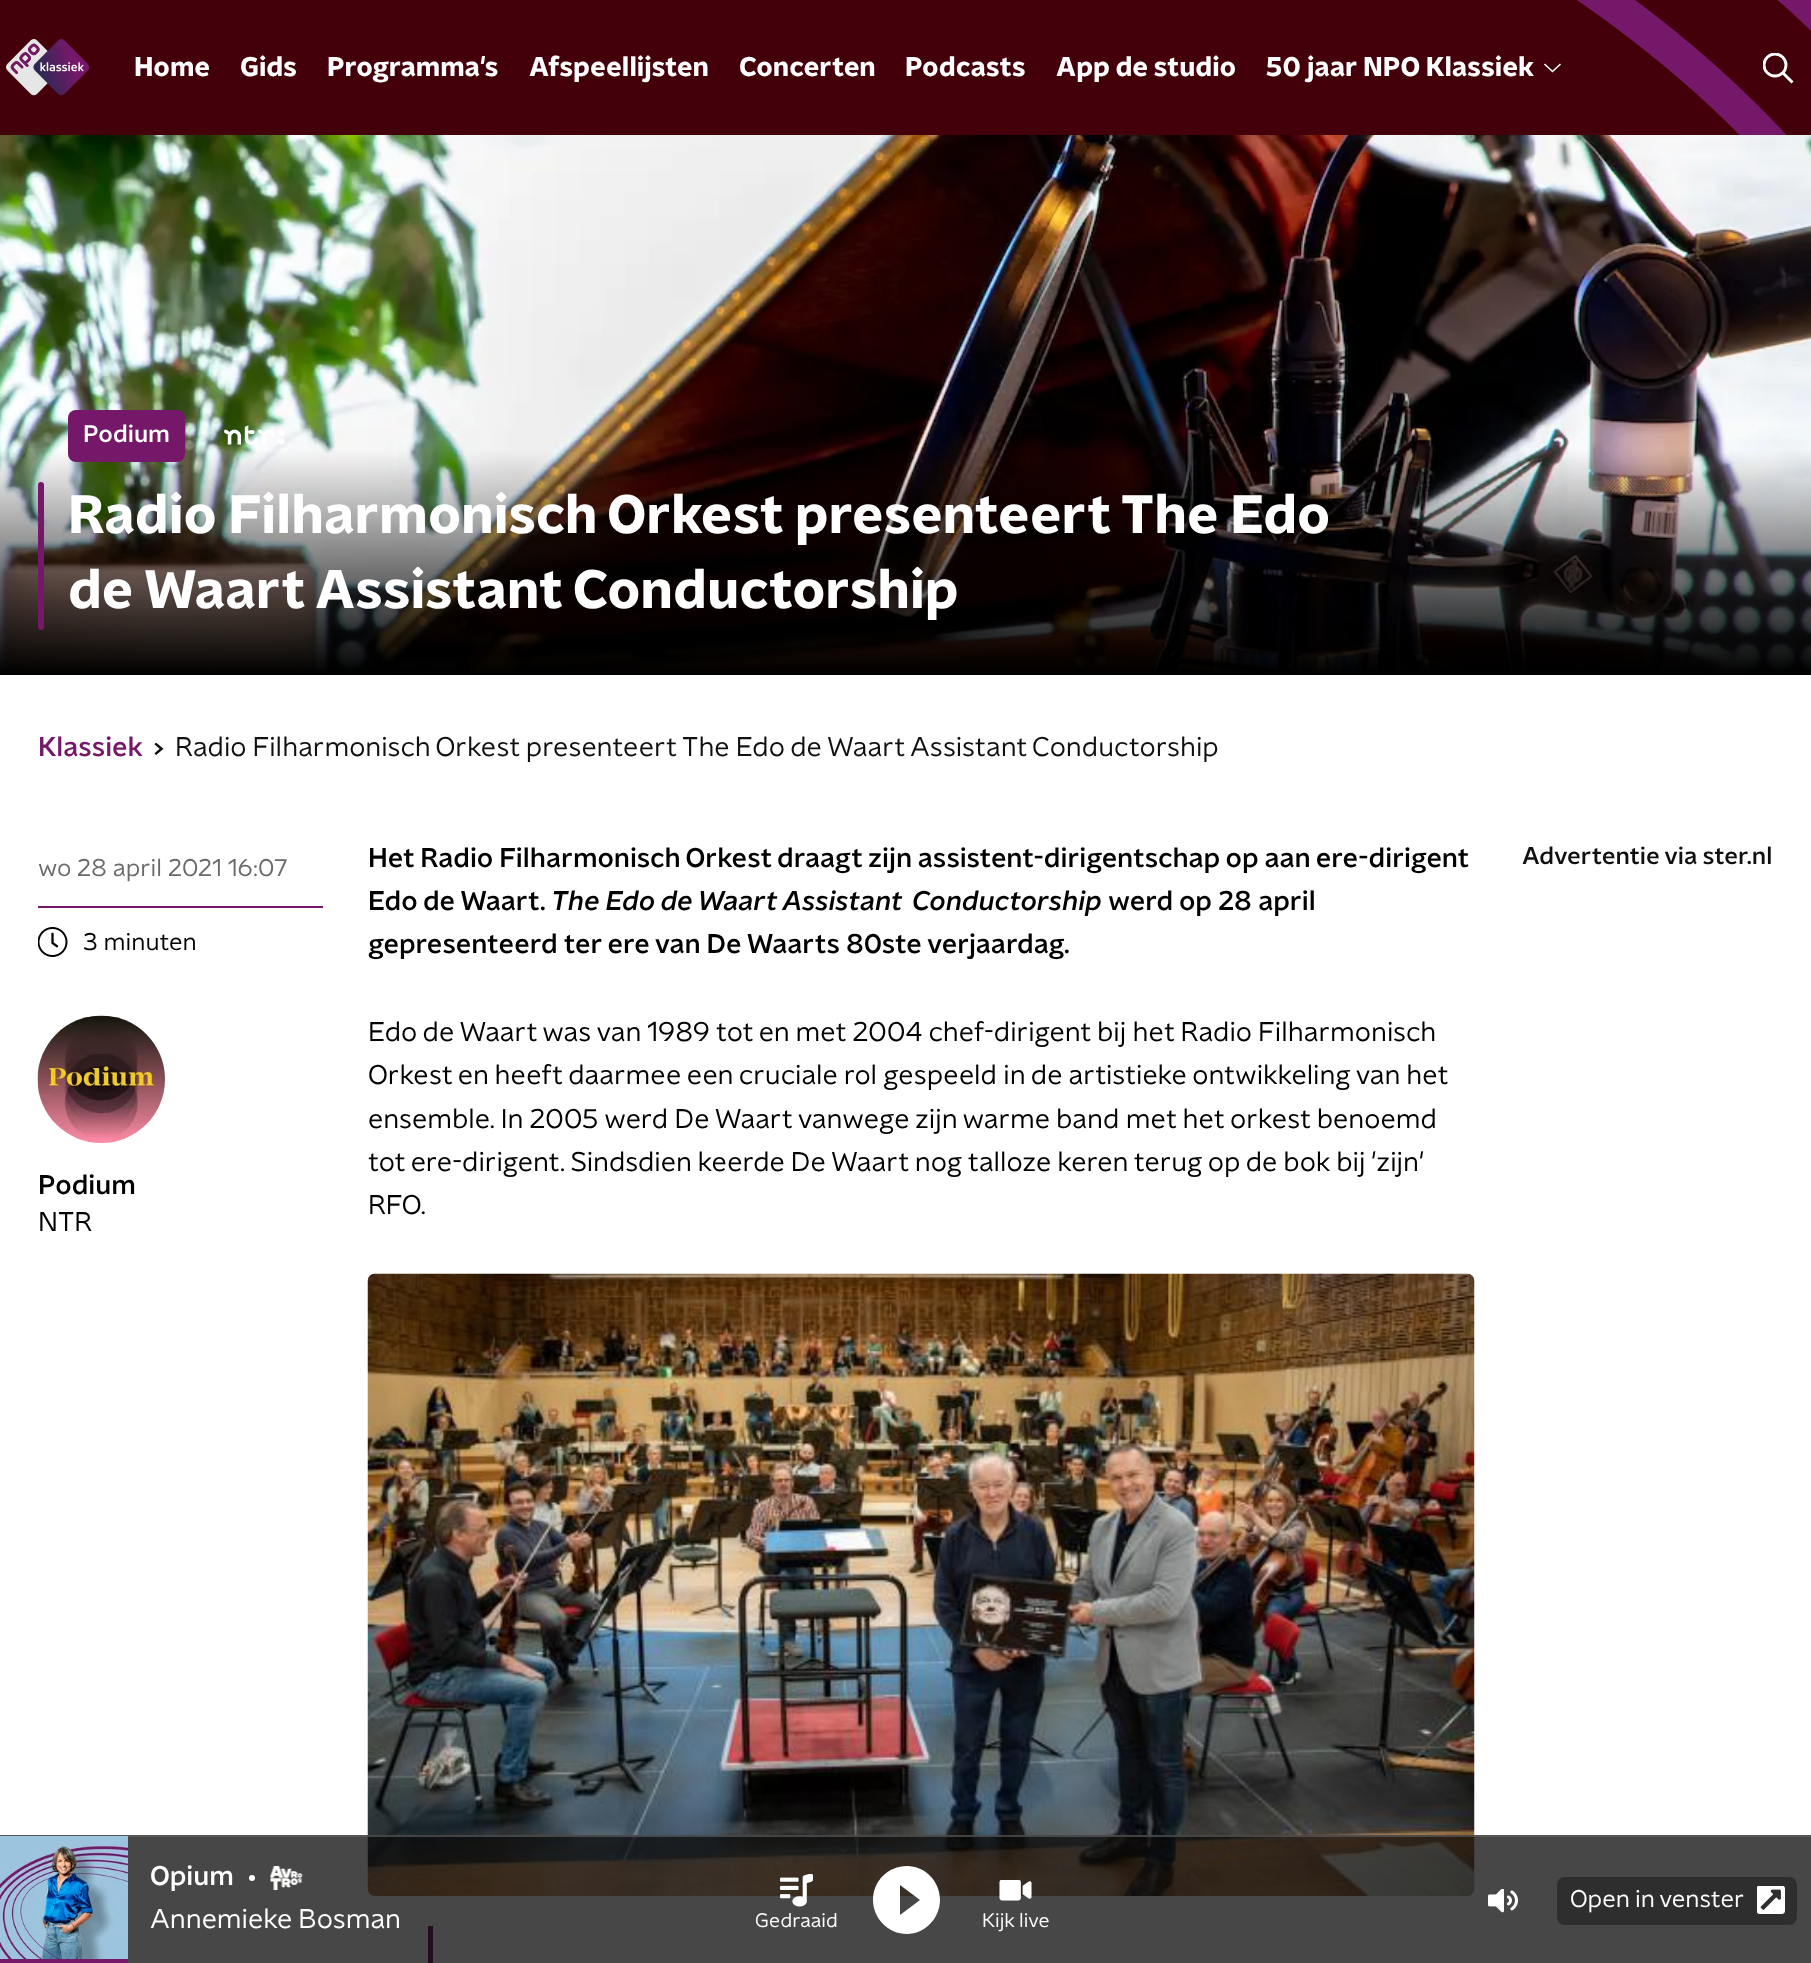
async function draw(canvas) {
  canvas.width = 1811;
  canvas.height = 1963;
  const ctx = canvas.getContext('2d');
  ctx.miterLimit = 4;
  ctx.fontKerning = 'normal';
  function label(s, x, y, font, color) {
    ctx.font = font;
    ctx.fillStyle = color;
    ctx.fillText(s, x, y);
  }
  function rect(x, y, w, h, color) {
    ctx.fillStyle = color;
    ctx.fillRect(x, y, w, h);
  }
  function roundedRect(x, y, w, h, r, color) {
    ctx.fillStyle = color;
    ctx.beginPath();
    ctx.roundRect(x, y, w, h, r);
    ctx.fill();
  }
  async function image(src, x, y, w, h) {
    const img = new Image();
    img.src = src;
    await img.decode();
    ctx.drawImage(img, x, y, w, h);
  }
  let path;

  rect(0, 0, 1811, 1963, '#fff');
  rect(0, 0, 1811, 135, '#43000b');
  await image('assets/img1.png', 6, 39, 83, 57);
  label('Home', 134, 76, 'bold 27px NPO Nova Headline', '#fff');
  label('Gids', 240, 76, 'bold 27px NPO Nova Headline', '#fff');
  label('Programma\'s', 327, 76, 'bold 27px NPO Nova Headline', '#fff');
  label('Afspeellijsten', 529, 76, 'bold 27px NPO Nova Headline', '#fff');
  label('Concerten', 739, 76, 'bold 27px NPO Nova Headline', '#fff');
  label('Podcasts', 905, 76, 'bold 27px NPO Nova Headline', '#fff');
  label('App de studio', 1056, 76, 'bold 27px NPO Nova Headline', '#fff');
  label('50 jaar NPO Klassiek', 1266, 76, 'bold 27px NPO Nova Headline', '#fff');
  path = new Path2D('M1544.5 64L1552.5 71.5L1560.5 64');
  ctx.strokeStyle = '#fff';
  ctx.lineWidth = 1.6;
  ctx.stroke(path);
  await image('assets/img2.png', 1577, 0, 234, 135);
  ctx.save();
  ctx.beginPath();
  ctx.rect(1763, 53, 30, 30);
  ctx.clip();
  ctx.beginPath();
  ctx.arc(1775, 65, 11, 0, 2 * Math.PI);
  ctx.lineWidth = 2.9;
  ctx.stroke();
  ctx.restore();
  path = new Path2D('M1783 73L1791.5 81.5');
  ctx.lineWidth = 2.9;
  ctx.lineCap = 'square';
  ctx.stroke(path);
  await image('assets/img3.png', 0, 135, 1811, 540);
  roundedRect(68, 410, 117, 52, 8, '#761869');
  label('Podium', 83, 442, '500 24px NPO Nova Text', '#fff');
  await image('assets/img4.png', 224, 425, 61, 20);
  roundedRect(38, 482, 6, 148, 3, '#761869');
  ctx.wordSpacing = '-0.25px';
  label('Radio Filharmonisch Orkest presenteert The Edo', 68, 533, 'bold 54px NPO Nova Headline', '#fff');
  ctx.wordSpacing = '0px';
  label('de Waart Assistant Conductorship', 68, 608, 'bold 54px NPO Nova Headline', '#fff');
  label('Klassiek', 38, 756, '500 27px NPO Nova Text', '#761869');
  await image('assets/img5.png', 154, 743, 10, 12);
  label('Radio Filharmonisch Orkest presenteert The Edo de Waart Assistant Conductorship', 175, 756, '27px NPO Nova Text', '#101010');
  label('wo 28 april 2021 16:07', 38, 876, '24px NPO Nova Text', '#6a6a6a');
  rect(38, 906, 285, 2, '#761869');
  await image('assets/img6.png', 38, 927, 30, 30);
  label('3 minuten', 83, 950, '24px NPO Nova Text', '#000');
  label('Het Radio Filharmonisch Orkest draagt zijn assistent-dirigentschap op aan ere-dirigent', 368, 867, '500 27px NPO Nova Text', '#000');
  label('Edo de Waart.', 368, 910, '500 27px NPO Nova Text', '#000');
  label('The Edo de Waart Assistant', 551, 910, 'italic 500 27px NPO Nova Text', '#000');
  label('Conductorship', 912, 910, 'italic 500 27px NPO Nova Text', '#000');
  label('werd op 28 april', 1108, 910, '500 27px NPO Nova Text', '#000');
  label('gepresenteerd ter ere van De Waarts 80ste verjaardag.', 368, 953, '500 27px NPO Nova Text', '#000');
  label('Edo de Waart was van 1989 tot en met 2004 chef-dirigent bij het Radio Filharmonisch', 368, 1041, '27px NPO Nova Text', '#000');
  label('Orkest en heeft daarmee een cruciale rol gespeeld in de artistieke ontwikkeling van het', 368, 1084, '27px NPO Nova Text', '#000');
  label('ensemble. In 2005 werd De Waart vanwege zijn warme band met het orkest benoemd', 368, 1128, '27px NPO Nova Text', '#000');
  label('tot ere-dirigent. Sindsdien keerde De Waart nog talloze keren terug op de bok bij \'zijn\'', 368, 1171, '27px NPO Nova Text', '#000');
  label('RFO.', 368, 1214, '27px NPO Nova Text', '#000');
  await image('assets/img7.png', 367, 1273, 1108, 623);
  rect(428, 1926, 5, 37, '#761869');
  label('Advertentie via ster.nl', 1522, 864, '500 24px NPO Nova Text', '#101010');
  await image('assets/img8.png', 37, 1015, 128, 128);
  label('Podium', 38, 1194, '500 27px NPO Nova Text', '#000');
  label('NTR', 38, 1231, '27px NPO Nova Text', '#000');
  rect(0, 1835, 1811, 128, '#090909bf');
  rect(0, 1835, 1811, 2, '#5f5f5fa6');
  await image('assets/img9.png', 0, 1836, 128, 123);
  rect(0, 1959, 128, 4, '#761869');
  label('Opium', 150, 1885, '500 27px NPO Nova Text', '#fff');
  ctx.beginPath();
  ctx.arc(252, 1878, 3, 0, 2 * Math.PI);
  ctx.fill();
  await image('assets/img10.png', 270, 1866, 33, 24);
  label('Annemieke Bosman', 150, 1928, '27px NPO Nova Text', '#fff');
  await image('assets/img11.png', 1488, 1889, 30, 24);
  roundedRect(1557, 1877, 240, 48, 8, '#2e2e2e');
  label('Open in venster', 1570, 1907, '24px NPO Nova Text', '#fff');
  await image('assets/img12.png', 1757, 1886, 28, 28);
  await image('assets/img13.png', 780, 1874, 33, 33);
  label('Gedraaid', 755, 1927, '19.5px NPO Nova Text', '#fff');
  path = new Path2D('M907 1866C888 1866 873 1881 873 1900C873 1918 888 1934 907 1934C925 1934 940 1918 940 1900C940 1881 925 1866 907 1866ZM900 1915V1885L920 1900Z');
  ctx.fill(path);
  await image('assets/img14.png', 999, 1880, 33, 21);
  label('Kijk live', 982, 1927, '19.5px NPO Nova Text', '#fff');
}

draw(document.querySelector('canvas'));
